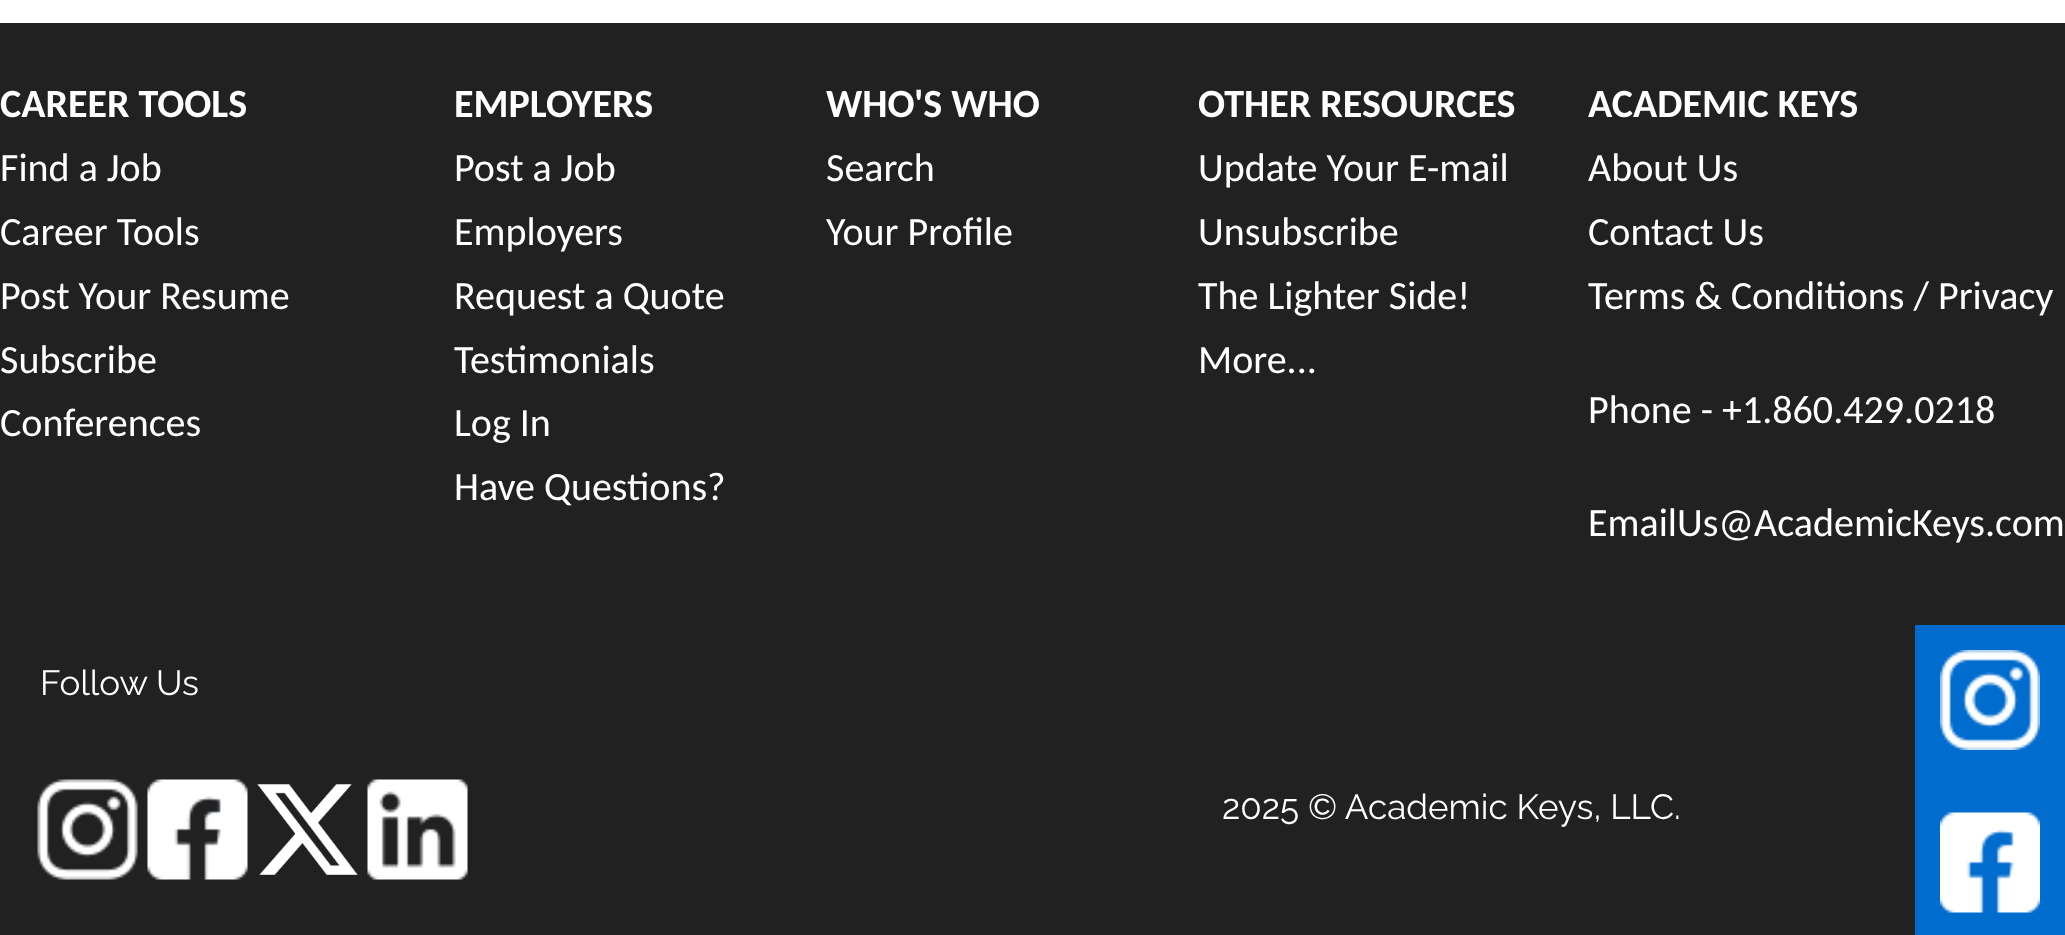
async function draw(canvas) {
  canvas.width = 2065;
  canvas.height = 935;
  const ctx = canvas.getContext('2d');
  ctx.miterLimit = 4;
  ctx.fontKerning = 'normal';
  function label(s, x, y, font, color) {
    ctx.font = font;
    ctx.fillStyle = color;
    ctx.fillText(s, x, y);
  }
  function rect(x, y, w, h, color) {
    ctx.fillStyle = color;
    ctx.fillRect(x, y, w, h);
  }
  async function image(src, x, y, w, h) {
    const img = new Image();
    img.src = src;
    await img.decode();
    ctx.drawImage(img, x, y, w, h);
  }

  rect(0, 0, 2065, 935, '#fff');
  rect(0, 23, 2065, 912, '#212121');
  label('CAREER TOOLS', 0, 117, 'bold 40px Carlito', '#fff');
  label('Find a Job', 0, 181, '40px Carlito', '#fff');
  label('Career Tools', 0, 245, '40px Carlito', '#fff');
  label('Post Your Resume', 0, 309, '40px Carlito', '#fff');
  label('Subscribe', 0, 373, '40px Carlito', '#fff');
  label('Conferences', 0, 436, '40px Carlito', '#fff');
  label('EMPLOYERS', 454, 117, 'bold 40px Carlito', '#fff');
  label('Post a Job', 454, 181, '40px Carlito', '#fff');
  label('Employers', 454, 245, '40px Carlito', '#fff');
  label('Request a Quote', 454, 309, '40px Carlito', '#fff');
  label('Testimonials', 454, 373, '40px Carlito', '#fff');
  label('Log In', 454, 436, '40px Carlito', '#fff');
  label('Have Questions?', 454, 500, '40px Carlito', '#fff');
  label('WHO\'S WHO', 826, 117, 'bold 40px Carlito', '#fff');
  label('Search', 826, 181, '40px Carlito', '#fff');
  label('Your Profile', 826, 245, '40px Carlito', '#fff');
  label('OTHER RESOURCES', 1198, 117, 'bold 40px Carlito', '#fff');
  label('Update Your E-mail', 1198, 181, '40px Carlito', '#fff');
  label('Unsubscribe', 1198, 245, '40px Carlito', '#fff');
  label('The Lighter Side!', 1198, 309, '40px Carlito', '#fff');
  label('More...', 1198, 373, '40px Carlito', '#fff');
  label('ACADEMIC KEYS', 1588, 117, 'bold 40px Carlito', '#fff');
  label('About Us', 1588, 181, '40px Carlito', '#fff');
  label('Contact Us', 1588, 245, '40px Carlito', '#fff');
  label('Terms & Conditions / Privacy', 1588, 309, '40px Carlito', '#fff');
  label('Phone - +1.860.429.0218', 1588, 423, '40px Carlito', '#fff');
  label('EmailUs@AcademicKeys.com', 1588, 536, '40px Carlito', '#fff');
  label('Follow Us', 40, 695, '35px Raleway', '#fff');
  await image('assets/img1.png', 37, 779, 101, 101);
  await image('assets/img2.png', 147, 779, 101, 101);
  await image('assets/img3.png', 257, 784, 101, 91);
  await image('assets/img4.png', 367, 779, 101, 101);
  label('2025 © Academic Keys, LLC.', 1222, 819, '35px Raleway', '#fff');
  rect(1915, 625, 150, 310, '#006ccd');
  await image('assets/img5.png', 1940, 650, 100, 100);
  await image('assets/img6.png', 1940, 812, 100, 101);
}

draw(document.querySelector('canvas'));
